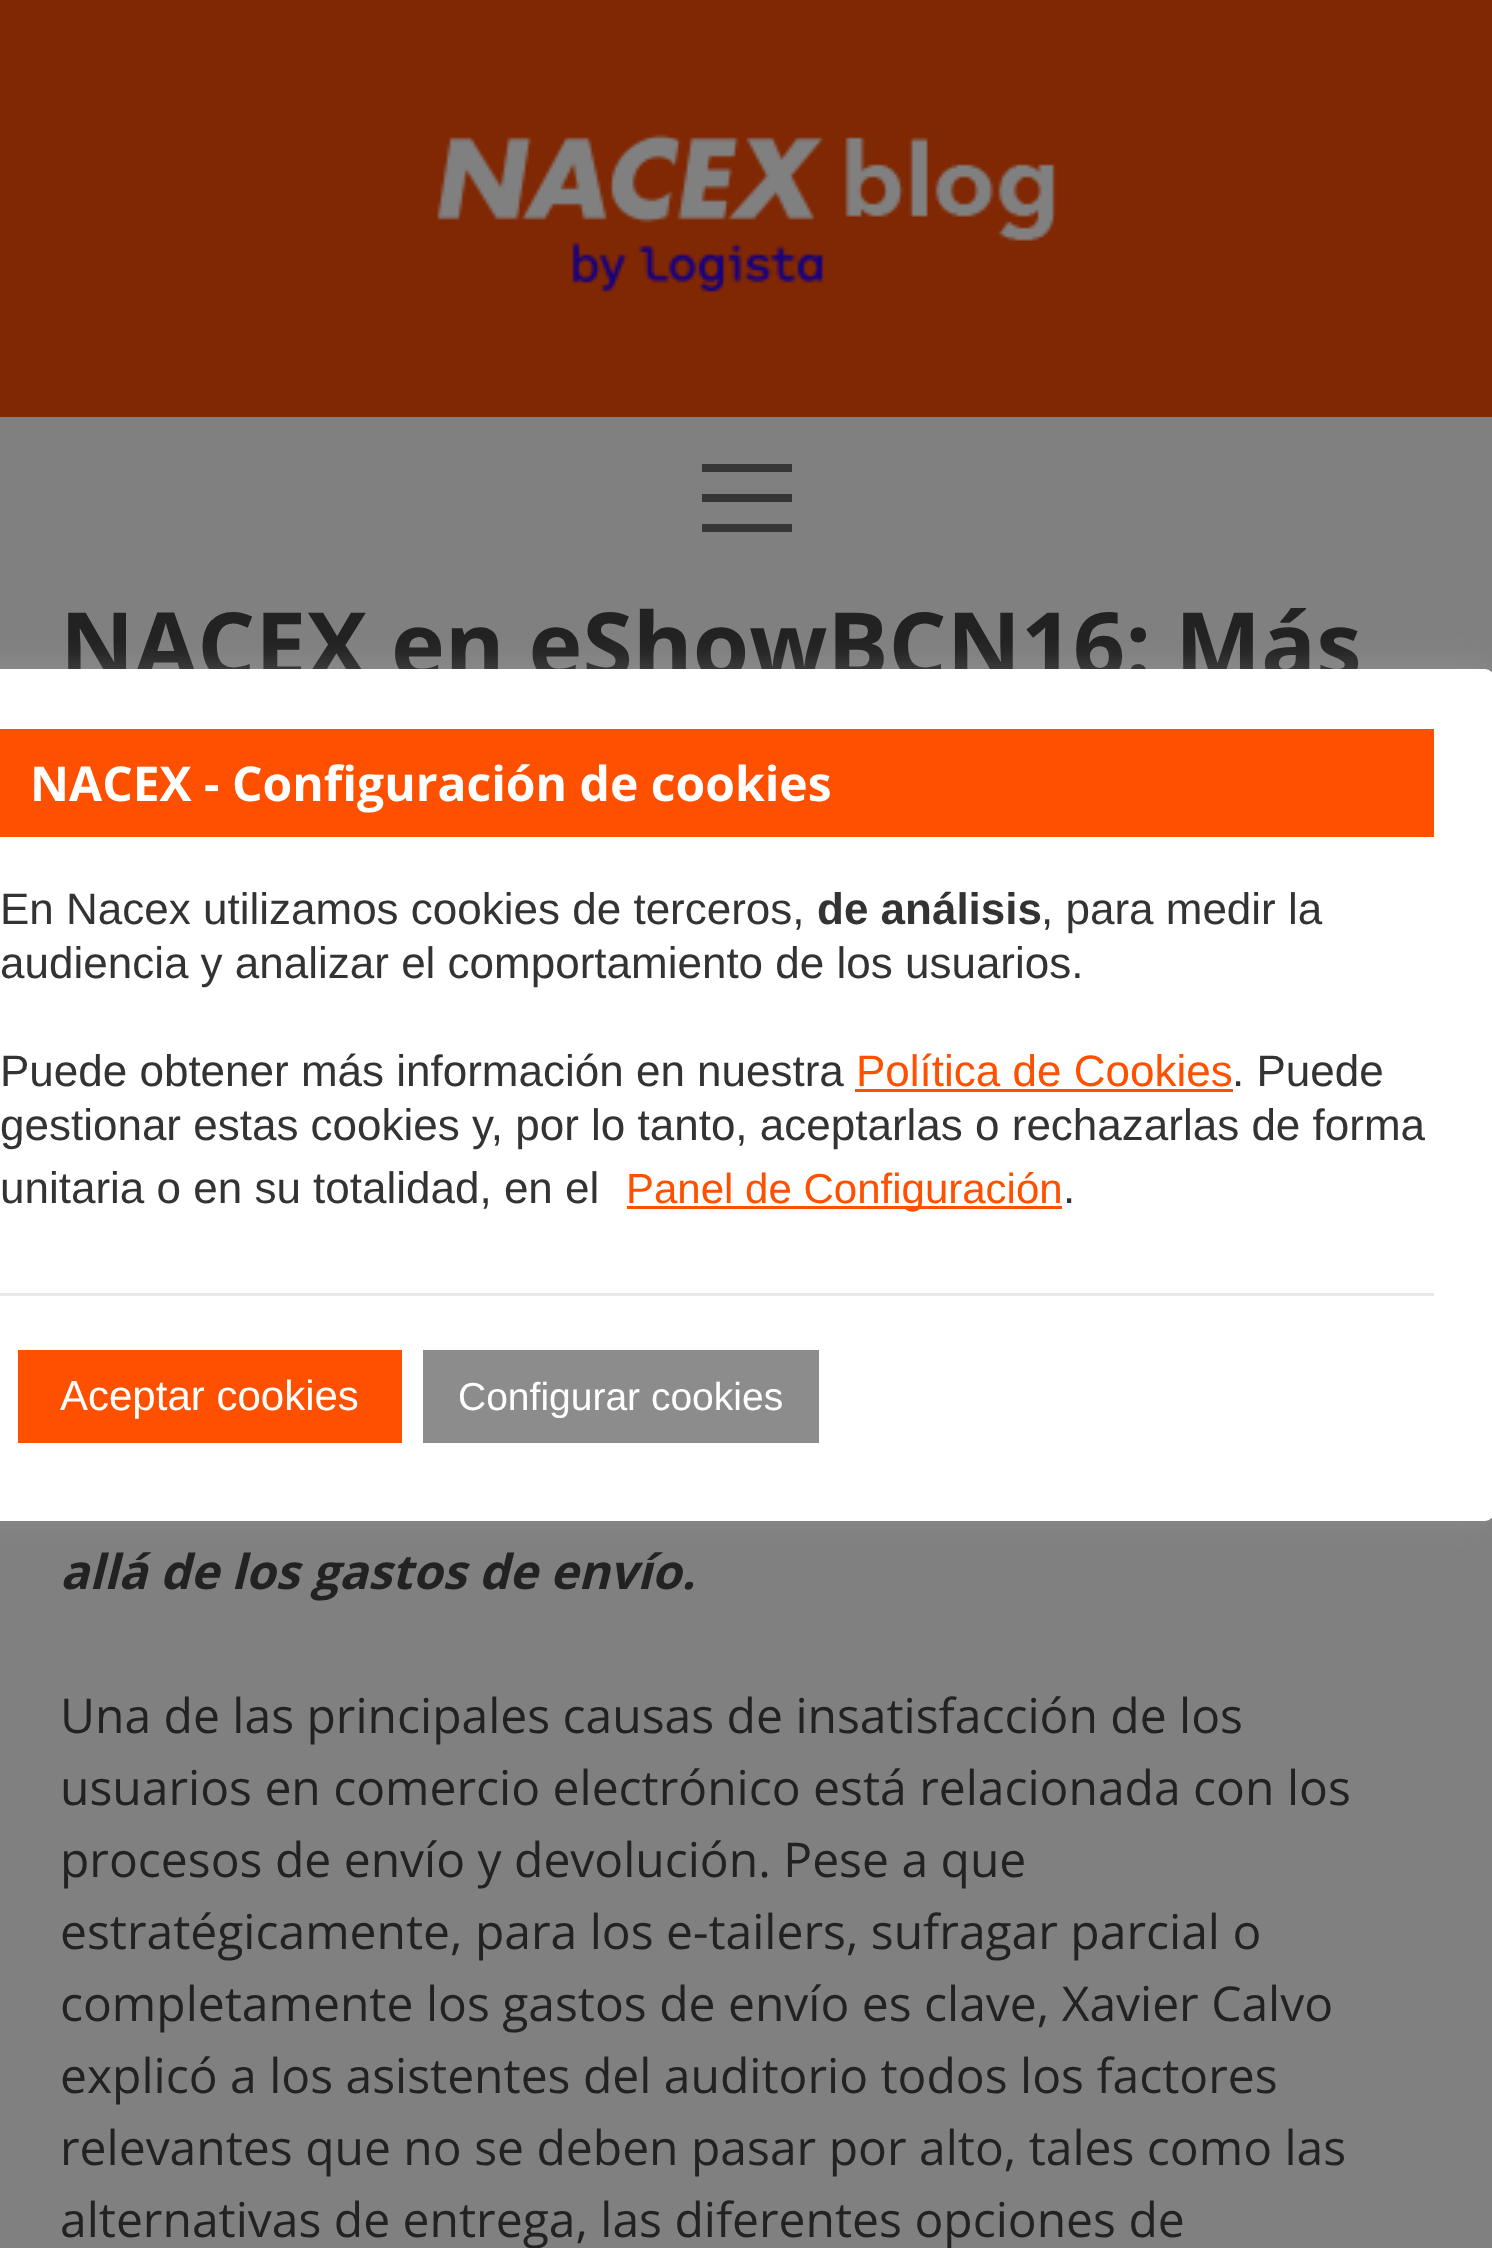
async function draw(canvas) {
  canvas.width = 1492;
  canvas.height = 2248;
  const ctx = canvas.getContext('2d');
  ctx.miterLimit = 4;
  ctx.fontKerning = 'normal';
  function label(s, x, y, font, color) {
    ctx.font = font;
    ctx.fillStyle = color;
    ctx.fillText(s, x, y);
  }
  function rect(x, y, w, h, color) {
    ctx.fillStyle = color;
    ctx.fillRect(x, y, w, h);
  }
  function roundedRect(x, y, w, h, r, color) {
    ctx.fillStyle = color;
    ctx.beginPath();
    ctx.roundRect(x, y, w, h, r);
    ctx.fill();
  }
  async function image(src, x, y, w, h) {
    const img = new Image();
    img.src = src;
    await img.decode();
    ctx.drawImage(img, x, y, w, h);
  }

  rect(0, 0, 1492, 2248, '#808080');
  rect(0, 0, 1492, 417, '#802703');
  await image('assets/img1.png', 437, 134, 620, 158);
  rect(702, 464, 90, 8, '#363636');
  rect(702, 494, 90, 8, '#363636');
  rect(702, 524, 90, 8, '#363636');
  label('NACEX en eShowBCN16: Más', 60, 678, 'bold 91.25px Open Sans', '#222');
  label('allá de los gastos de envío.', 60, 1589, 'italic bold 48px Open Sans', '#222');
  label('Una de las principales causas de insatisfacción de los', 60, 1733, '48px Open Sans', '#222');
  label('usuarios en comercio electrónico está relacionada con los', 60, 1805, '48px Open Sans', '#222');
  label('procesos de envío y devolución. Pese a que', 60, 1877, '48px Open Sans', '#222');
  label('estratégicamente, para los e-tailers, sufragar parcial o', 60, 1949, '48px Open Sans', '#222');
  label('completamente los gastos de envío es clave, Xavier Calvo', 60, 2021, '48px Open Sans', '#222');
  label('explicó a los asistentes del auditorio todos los factores', 60, 2093, '48px Open Sans', '#222');
  label('relevantes que no se deben pasar por alto, tales como las', 60, 2165, '48px Open Sans', '#222');
  label('alternativas de entrega, las diferentes opciones de', 60, 2237, '48px Open Sans', '#222');
  ctx.fillStyle = '#acabab4d';
  ctx.filter = 'blur(15px)';
  ctx.beginPath();
  ctx.roundRect(-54, 666, 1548, 852, 9);
  ctx.fill();
  ctx.filter = 'none';
  roundedRect(-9, 669, 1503, 852, 9, '#fff');
  rect(0, 729, 1434, 108, '#ff5000');
  label('NACEX - Configuración de cookies', 30, 801, 'bold 48px Open Sans', '#fff');
  label('En Nacex utilizamos cookies de terceros,', 0, 924, '44px Liberation Sans', '#333');
  label('de análisis', 817, 924, 'bold 44px Liberation Sans', '#333');
  label(', para medir la', 1041, 924, '44px Liberation Sans', '#333');
  label('audiencia y analizar el comportamiento de los usuarios.', 0, 978, '44px Liberation Sans', '#333');
  label('Puede obtener más información en nuestra', 0, 1086, '44px Liberation Sans', '#333');
  label('Política de Cookies', 856, 1086, '44px Liberation Sans', '#ff5000');
  rect(855, 1089, 378, 3, '#ff5000');
  label('. Puede', 1232, 1086, '44px Liberation Sans', '#333');
  label('gestionar estas cookies y, por lo tanto, aceptarlas o rechazarlas de forma', 0, 1140, '44px Liberation Sans', '#333');
  label('unitaria o en su totalidad, en el', 0, 1203, '44px Liberation Sans', '#333');
  rect(627, 1206, 435, 3, '#ff5000');
  label('Panel de Configuración', 626, 1203, '42px Liberation Sans', '#ff5000');
  label('.', 1063, 1203, '44px Liberation Sans', '#333');
  rect(0, 1293, 1434, 3, '#e7e7e7');
  rect(18, 1350, 384, 93, '#ff5000');
  label('Aceptar cookies', 60, 1410, '42px Liberation Sans', '#fff');
  rect(423, 1350, 396, 93, '#8c8c8c');
  label('Configurar cookies', 458, 1410, '39px Liberation Sans', '#fff');
}

draw(document.querySelector('canvas'));
